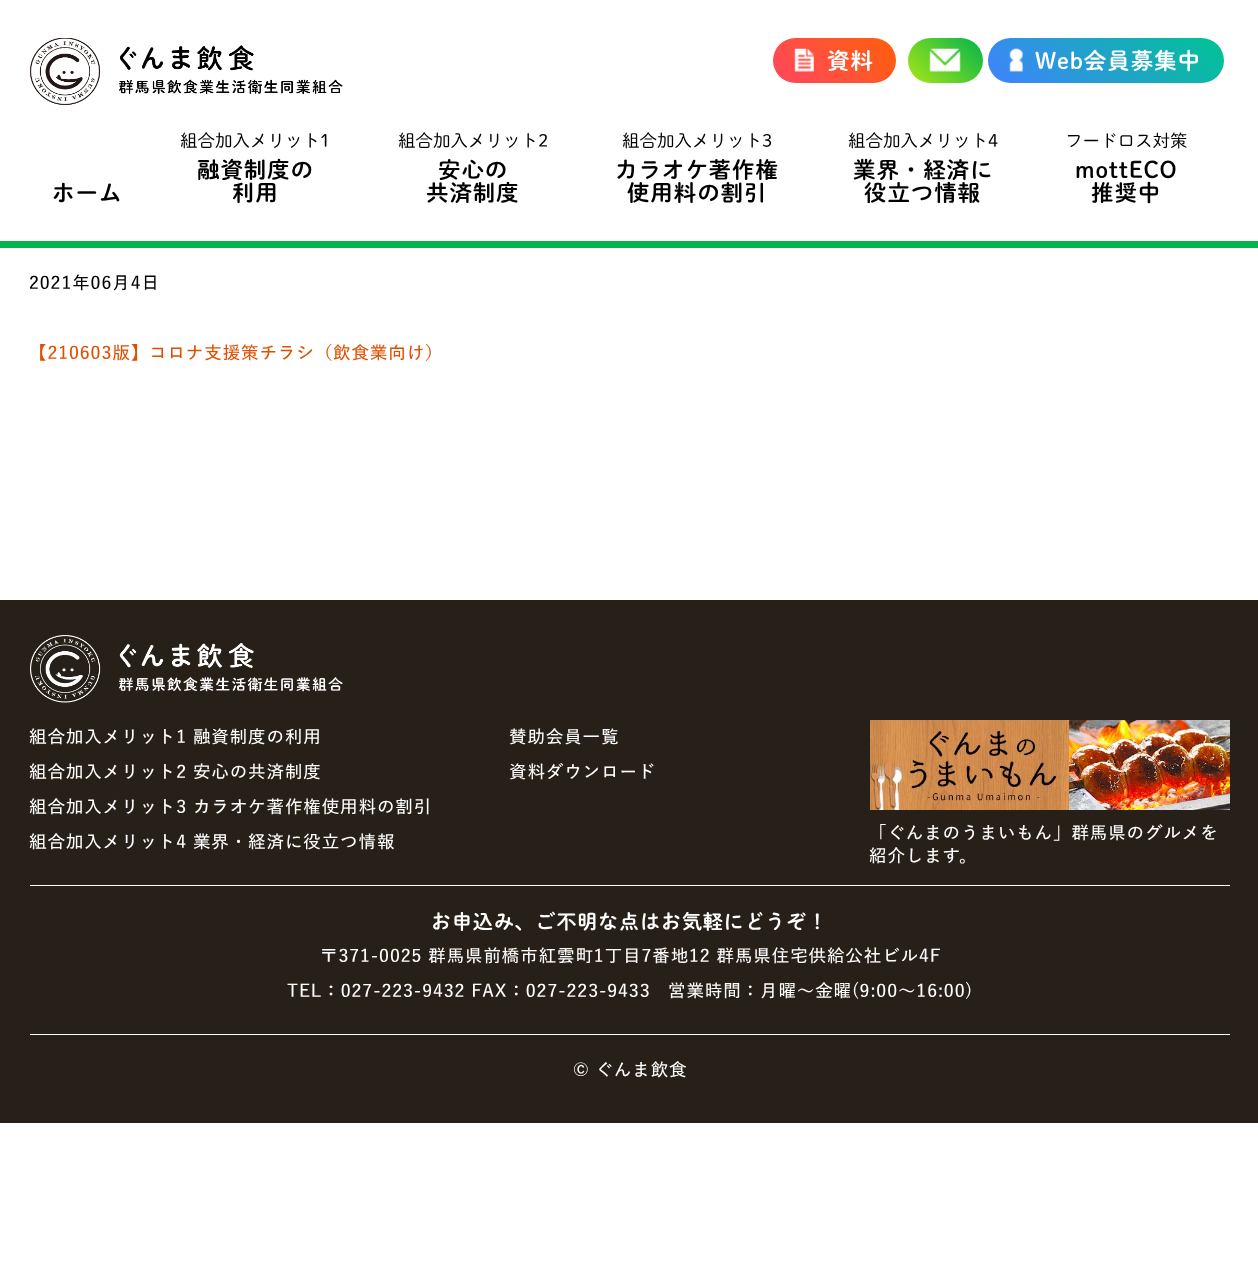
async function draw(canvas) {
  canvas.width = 1258;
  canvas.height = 1285;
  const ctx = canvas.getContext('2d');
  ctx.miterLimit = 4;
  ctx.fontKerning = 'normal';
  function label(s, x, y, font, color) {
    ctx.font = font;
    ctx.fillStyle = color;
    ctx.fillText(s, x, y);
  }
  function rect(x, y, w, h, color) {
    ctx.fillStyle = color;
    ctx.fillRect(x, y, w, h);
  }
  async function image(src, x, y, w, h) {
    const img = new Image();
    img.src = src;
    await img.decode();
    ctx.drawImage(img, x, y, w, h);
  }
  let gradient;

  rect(0, 0, 1258, 1285, '#fff');
  rect(0, 241, 1258, 7, '#02b44b');
  await image('assets/img1.png', 30, 38, 313, 67);
  gradient = ctx.createLinearGradient(792, 102, 877, 18);
  gradient.addColorStop(0, '#ff4660');
  gradient.addColorStop(1, '#ff6009');
  ctx.fillStyle = gradient;
  ctx.beginPath();
  ctx.roundRect(773, 38, 123, 45, 22.5);
  ctx.fill();
  await image('assets/img2.png', 794, 48, 20, 24);
  ctx.letterSpacing = '0.9px';
  label('資料', 827, 69, '600 22.5px "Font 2"', '#fff');
  gradient = ctx.createLinearGradient(915, 90, 975, 30);
  gradient.addColorStop(0, '#a8e615');
  gradient.addColorStop(1, '#02b44b');
  ctx.fillStyle = gradient;
  ctx.beginPath();
  ctx.roundRect(908, 38, 75, 45, 22.5);
  ctx.fill();
  await image('assets/img3.png', 929, 48, 32, 24);
  gradient = ctx.createLinearGradient(1035, 130, 1176, -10);
  gradient.addColorStop(0, '#4083ff');
  gradient.addColorStop(1, '#00c393');
  ctx.fillStyle = gradient;
  ctx.beginPath();
  ctx.roundRect(988, 38, 236, 45, 22.5);
  ctx.fill();
  await image('assets/img4.png', 1009, 48, 14, 24);
  label('Web会員募集中', 1035, 69, '600 22.5px "Font 2"', '#fff');
  label('ホーム', 52, 201, '600 22.5px "Font 2"', '#000');
  ctx.letterSpacing = '0px';
  label('組合加入メリット1', 180, 147, '17.5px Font', '#000');
  ctx.letterSpacing = '0.9px';
  label('融資制度の', 197, 178, '600 22.5px "Font 2"', '#000');
  label('利用', 232, 201, '600 22.5px "Font 2"', '#000');
  ctx.letterSpacing = '0px';
  label('組合加入メリット2', 398, 147, '17.5px Font', '#000');
  ctx.letterSpacing = '0.9px';
  label('安心の', 438, 178, '600 22.5px "Font 2"', '#000');
  label('共済制度', 426, 201, '600 22.5px "Font 2"', '#000');
  ctx.letterSpacing = '0px';
  label('組合加入メリット3', 622, 147, '17.5px Font', '#000');
  ctx.letterSpacing = '0.9px';
  label('カラオケ著作権', 615, 178, '600 22.5px "Font 2"', '#000');
  label('使用料の割引', 627, 201, '600 22.5px "Font 2"', '#000');
  ctx.letterSpacing = '0px';
  label('組合加入メリット4', 848, 147, '17.5px Font', '#000');
  ctx.letterSpacing = '0.9px';
  label('業界・経済に', 853, 178, '600 22.5px "Font 2"', '#000');
  label('役立つ情報', 864, 201, '600 22.5px "Font 2"', '#000');
  ctx.letterSpacing = '0px';
  label('フードロス対策', 1065, 147, '17.5px Font', '#000');
  ctx.letterSpacing = '0.9px';
  label('mottECO', 1075, 178, '600 22.5px "Font 2"', '#000');
  label('推奨中', 1091, 201, '600 22.5px "Font 2"', '#000');
  label('2021年06月4日', 29, 289, '600 17.5px Font', '#000');
  label('【210603版】コロナ支援策チラシ（飲食業向け）', 29, 359, '600 17.5px Font', '#e04f00');
  rect(0, 600, 1258, 523, '#262019');
  await image('assets/img5.png', 30, 635, 313, 68);
  label('組合加入メリット1 融資制度の利用', 29, 743, '600 17.5px Font', '#fff');
  label('組合加入メリット2 安心の共済制度', 29, 778, '600 17.5px Font', '#fff');
  label('組合加入メリット3 カラオケ著作権使用料の割引', 29, 813, '600 17.5px Font', '#fff');
  label('組合加入メリット4 業界・経済に役立つ情報', 29, 848, '600 17.5px Font', '#fff');
  label('賛助会員一覧', 509, 743, '600 17.5px Font', '#fff');
  label('資料ダウンロード', 509, 778, '600 17.5px Font', '#fff');
  await image('assets/img6.png', 870, 720, 360, 90);
  label('「ぐんまのうまいもん」群馬県のグルメを', 869, 839, '600 17.5px Font', '#fff');
  label('紹介します。', 869, 862, '600 17.5px Font', '#fff');
  rect(30, 885, 1200, 1, '#fff');
  label('お申込み、ご不明な点はお気軽にどうぞ！', 431, 929, '600 20px "Font 2"', '#fff');
  label('〒371-0025 群馬県前橋市紅雲町1丁目7番地12 群馬県住宅供給公社ビル4F', 320, 962, '600 17.5px Font', '#fff');
  label('TEL：027-223-9432 FAX：027-223-9433', 287, 997, '600 17.5px Font', '#fff');
  label('営業時間：月曜～金曜(9:00～16:00)', 668, 997, '600 17.5px Font', '#fff');
  rect(30, 1034, 1200, 1, '#fff');
  label('© ぐんま飲食', 573, 1076, '600 17.5px Font', '#fff');
}

draw(document.querySelector('canvas'));
